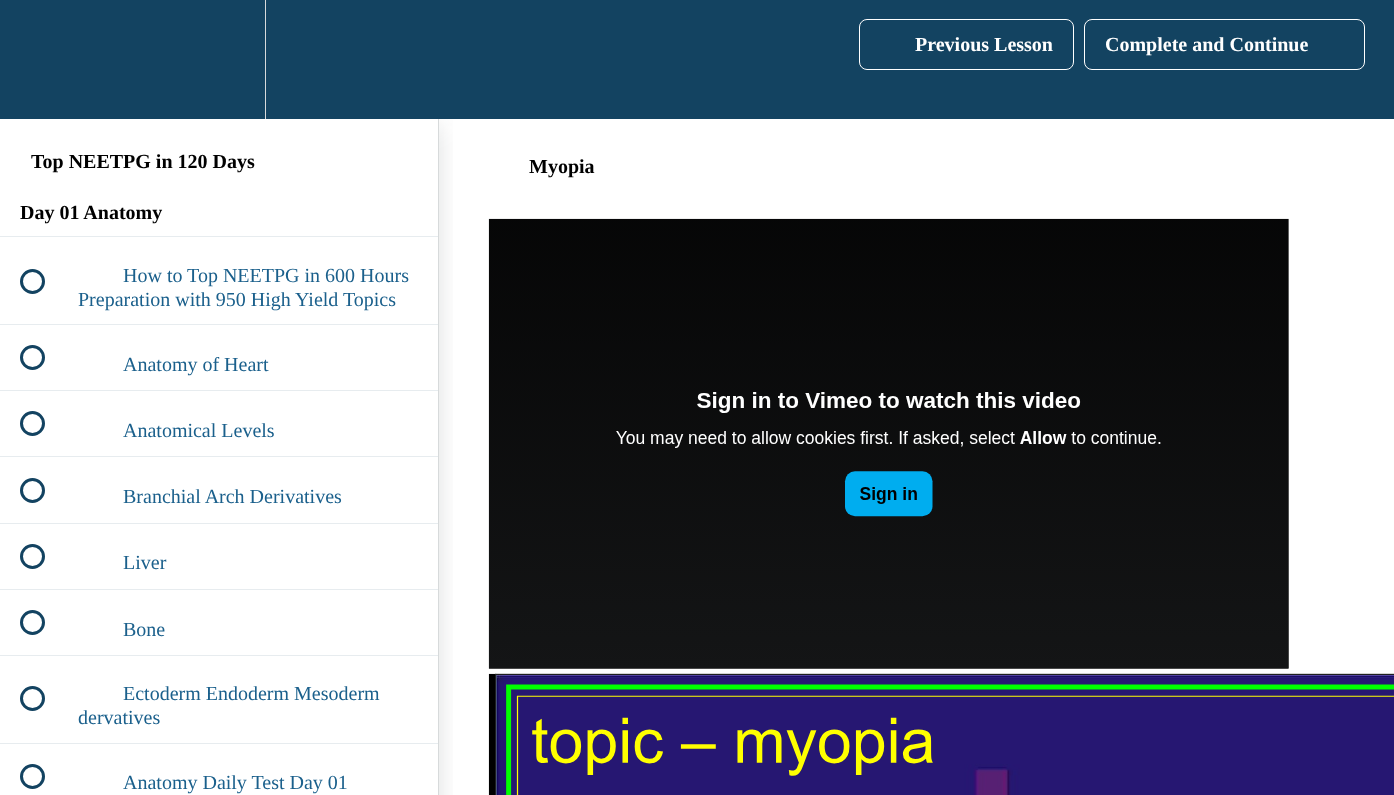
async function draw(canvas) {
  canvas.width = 1394;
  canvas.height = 795;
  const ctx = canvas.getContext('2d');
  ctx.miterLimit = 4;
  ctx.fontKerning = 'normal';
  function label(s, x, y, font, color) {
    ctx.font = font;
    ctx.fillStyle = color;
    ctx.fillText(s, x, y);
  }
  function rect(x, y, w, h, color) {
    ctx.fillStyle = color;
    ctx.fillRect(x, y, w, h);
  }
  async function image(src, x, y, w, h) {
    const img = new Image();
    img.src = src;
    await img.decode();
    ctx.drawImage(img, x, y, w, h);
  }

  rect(0, 0, 1394, 795, '#fff');
  ctx.save();
  ctx.beginPath();
  ctx.rect(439, 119, 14, 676);
  ctx.clip();
  ctx.fillStyle = '#20272d26';
  ctx.filter = 'blur(12.5px)';
  ctx.beginPath();
  ctx.rect(0, 126, 439, 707);
  ctx.fill();
  ctx.filter = 'none';
  ctx.restore();
  rect(0, 0, 1394, 119, '#134361');
  rect(265, 0, 1, 119, '#d7dadb');
  ctx.beginPath();
  ctx.roundRect(859.5, 19.5, 214, 50, 7.5);
  ctx.strokeStyle = '#fff';
  ctx.stroke();
  label('Previous Lesson', 915, 51, 'bold 20px Liberation Serif', '#fff');
  ctx.beginPath();
  ctx.roundRect(1084.5, 19.5, 280, 50, 7.5);
  ctx.stroke();
  label('Complete and Continue', 1105, 51, 'bold 20px Liberation Serif', '#fff');
  rect(438, 119, 1, 676, '#d7dadb');
  label('Top NEETPG in 120 Days', 31, 168, 'bold 20px Liberation Serif', '#000');
  rect(0, 236, 438, 1, '#e7ecef');
  label('Day 01 Anatomy', 20, 219, 'bold 20px Liberation Serif', '#000');
  rect(0, 324, 438, 1, '#e7ecef');
  ctx.beginPath();
  ctx.arc(32.5, 281.5, 11, 0, 2 * Math.PI);
  ctx.strokeStyle = '#134361';
  ctx.lineWidth = 3;
  ctx.stroke();
  label('How to Top NEETPG in 600 Hours', 123, 282, '20px Liberation Serif', '#1b608c');
  label('Preparation with 950 High Yield Topics', 78, 306, '20px Liberation Serif', '#1b608c');
  rect(0, 390, 438, 1, '#e7ecef');
  ctx.beginPath();
  ctx.arc(32.5, 357.5, 11, 0, 2 * Math.PI);
  ctx.stroke();
  label('Anatomy of Heart', 123, 371, '20px Liberation Serif', '#1b608c');
  rect(0, 456, 438, 1, '#e7ecef');
  ctx.beginPath();
  ctx.arc(32.5, 423.5, 11, 0, 2 * Math.PI);
  ctx.stroke();
  label('Anatomical Levels', 123, 437, '20px Liberation Serif', '#1b608c');
  rect(0, 523, 438, 1, '#e7ecef');
  ctx.beginPath();
  ctx.arc(32.5, 490.5, 11, 0, 2 * Math.PI);
  ctx.stroke();
  label('Branchial Arch Derivatives', 123, 503, '20px Liberation Serif', '#1b608c');
  rect(0, 589, 438, 1, '#e7ecef');
  ctx.beginPath();
  ctx.arc(32.5, 556.5, 11, 0, 2 * Math.PI);
  ctx.stroke();
  label('Liver', 123, 569, '20px Liberation Serif', '#1b608c');
  rect(0, 655, 438, 1, '#e7ecef');
  ctx.beginPath();
  ctx.arc(32.5, 622.5, 11, 0, 2 * Math.PI);
  ctx.stroke();
  label('Bone', 123, 636, '20px Liberation Serif', '#1b608c');
  rect(0, 743, 438, 1, '#e7ecef');
  ctx.beginPath();
  ctx.arc(32.5, 698.5, 11, 0, 2 * Math.PI);
  ctx.stroke();
  label('Ectoderm Endoderm Mesoderm', 123, 700, '20px Liberation Serif', '#1b608c');
  label('dervatives', 78, 724, '20px Liberation Serif', '#1b608c');
  ctx.beginPath();
  ctx.arc(32.5, 776.5, 11, 0, 2 * Math.PI);
  ctx.stroke();
  label('Anatomy Daily Test Day 01', 123, 789, '20px Liberation Serif', '#1b608c');
  label('Myopia', 529, 173, 'bold 20px Liberation Serif', '#000');
  await image('assets/img1.png', 488, 218, 801, 451);
  await image('assets/img2.png', 488, 673, 906, 122);
}

draw(document.querySelector('canvas'));
